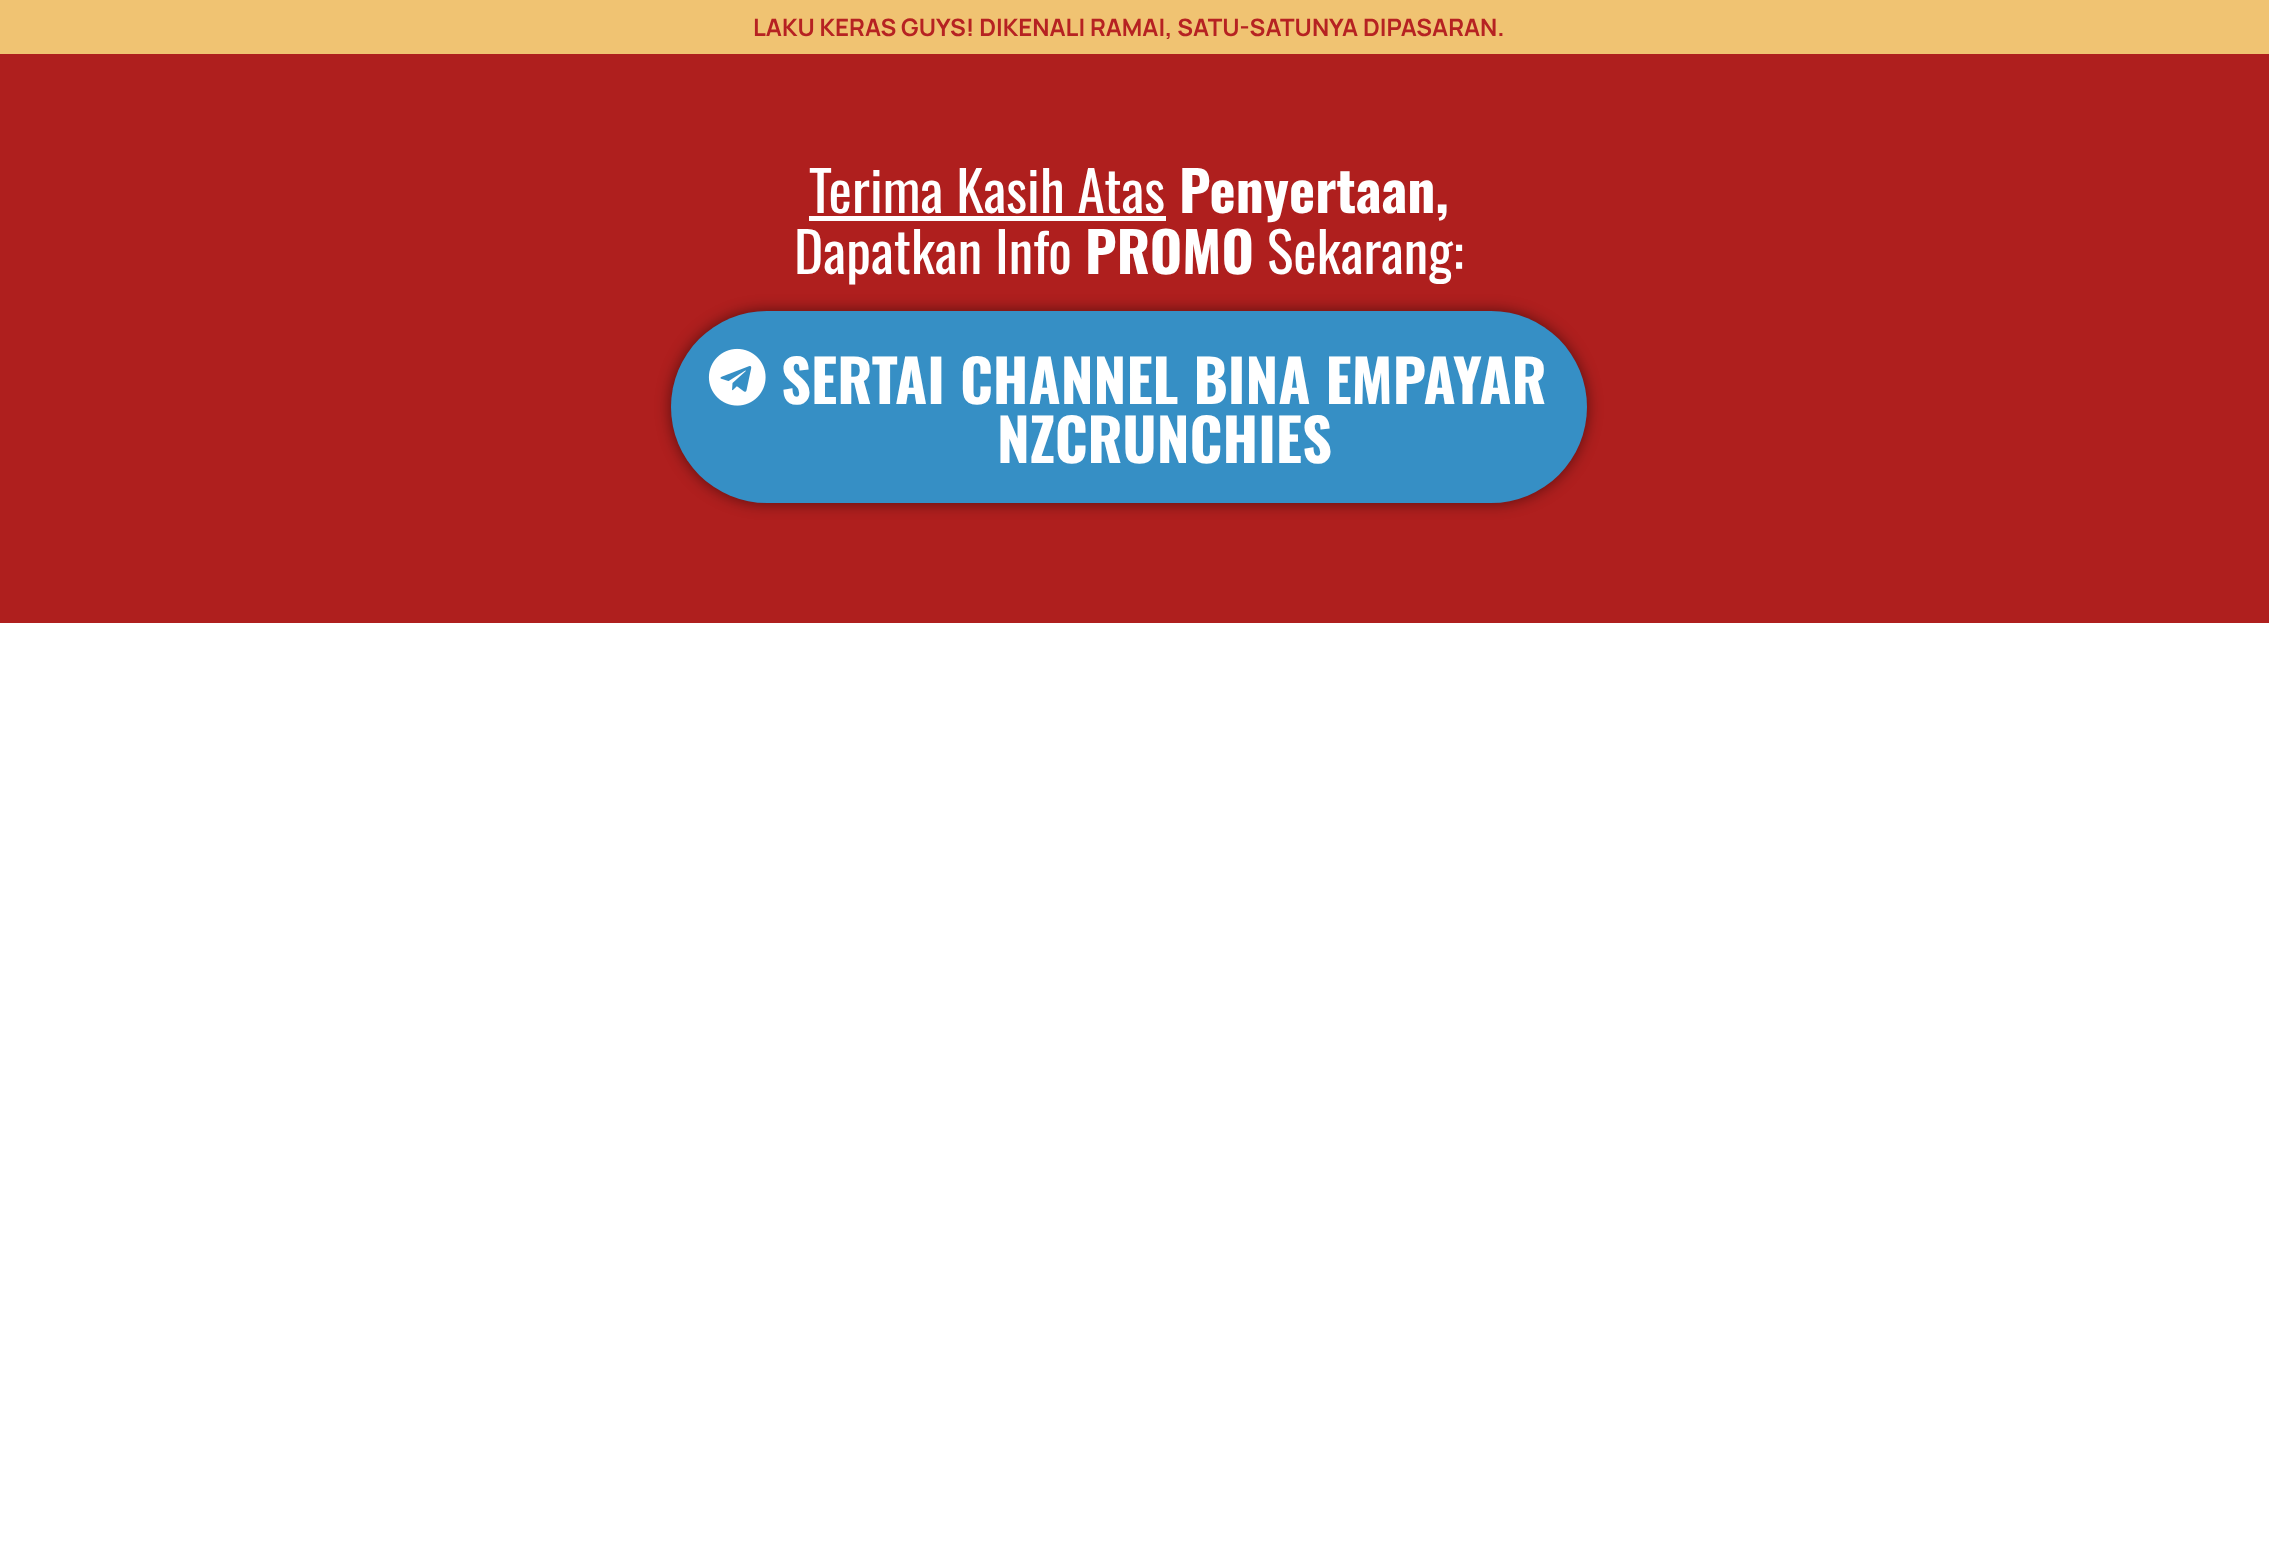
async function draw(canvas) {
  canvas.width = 2269;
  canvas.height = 1545;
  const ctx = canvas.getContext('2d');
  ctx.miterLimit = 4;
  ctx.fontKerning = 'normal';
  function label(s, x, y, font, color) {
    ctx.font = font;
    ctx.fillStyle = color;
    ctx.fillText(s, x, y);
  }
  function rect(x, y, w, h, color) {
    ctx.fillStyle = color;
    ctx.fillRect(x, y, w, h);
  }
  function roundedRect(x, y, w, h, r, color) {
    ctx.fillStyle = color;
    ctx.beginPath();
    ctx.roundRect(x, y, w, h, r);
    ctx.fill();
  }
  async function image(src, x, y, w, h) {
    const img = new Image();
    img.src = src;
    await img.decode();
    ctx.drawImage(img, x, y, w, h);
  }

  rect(0, 0, 2269, 1545, '#fff');
  rect(0, 0, 2269, 54, '#f0c372');
  label('LAKU KERAS GUYS! DIKENALI RAMAI, SATU-SATUNYA DIPASARAN.', 753, 36, 'bold 24px Manrope', '#b62222');
  rect(0, 54, 2269, 569, '#af1f1e');
  ctx.letterSpacing = '0.1px';
  label('Terima Kasih Atas', 809, 213, '55.5px Oswald', '#fff');
  rect(809, 216, 357, 5, '#fff');
  label('Penyertaan,', 1179, 213, 'bold 55.5px Oswald', '#fff');
  label('Dapatkan Info', 794, 274, '55.5px Oswald', '#fff');
  label('PROMO', 1085, 274, 'bold 55.5px Oswald', '#fff');
  label('Sekarang:', 1267, 274, '55.5px Oswald', '#fff');
  ctx.fillStyle = '#00000080';
  ctx.filter = 'blur(7.5px)';
  ctx.beginPath();
  ctx.roundRect(671, 311, 916, 192, 96);
  ctx.fill();
  ctx.filter = 'none';
  roundedRect(671, 311, 916, 192, 96, '#368fc5');
  await image('assets/img1.png', 708, 348, 58, 58);
  ctx.letterSpacing = '0px';
  label('SERTAI CHANNEL BINA EMPAYAR', 781, 404, 'bold 58.5px Oswald', '#fff');
  label('NZCRUNCHIES', 997, 463, 'bold 58.5px Oswald', '#fff');
}

draw(document.querySelector('canvas'));
